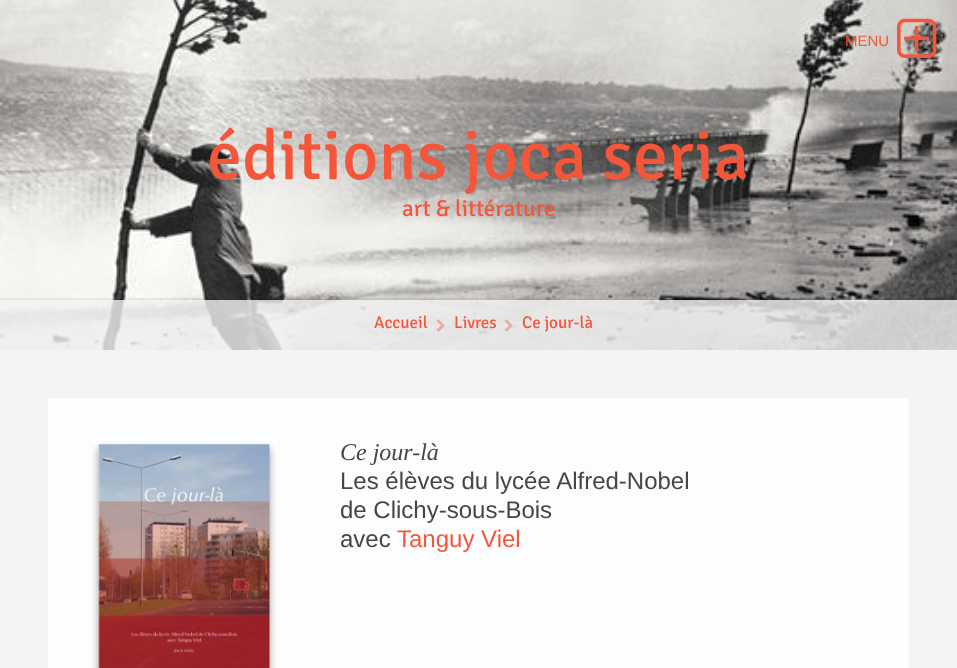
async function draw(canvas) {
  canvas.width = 957;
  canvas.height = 668;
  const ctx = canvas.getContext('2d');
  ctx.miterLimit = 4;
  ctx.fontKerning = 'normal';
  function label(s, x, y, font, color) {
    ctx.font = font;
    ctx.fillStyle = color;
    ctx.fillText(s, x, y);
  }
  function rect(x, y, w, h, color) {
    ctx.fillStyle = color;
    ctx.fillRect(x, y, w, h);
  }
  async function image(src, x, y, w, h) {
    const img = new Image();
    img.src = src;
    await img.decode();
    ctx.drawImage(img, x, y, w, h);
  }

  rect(0, 0, 957, 668, '#fff');
  await image('assets/img2.png', 0, 0, 957, 350);
  label('MENU', 845, 46, '15px Liberation Sans', '#f55639');
  await image('assets/img1.png', 897, 18, 40, 40);
  label('éditions joca seria', 207, 179, '70px Signika', '#f55639');
  label('art & littérature', 402, 216, '23px Signika', '#f55639');
  ctx.save();
  ctx.beginPath();
  ctx.rect(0, 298, 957, 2);
  ctx.clip();
  ctx.fillStyle = '#0000004d';
  ctx.filter = 'blur(3px)';
  ctx.beginPath();
  ctx.rect(0, 302, 957, 100);
  ctx.fill();
  ctx.filter = 'none';
  ctx.restore();
  rect(0, 300, 957, 50, '#f4f4f4cc');
  label('Accueil', 374, 328, '17px Signika', '#f55639');
  await image('assets/img3.png', 436, 319, 9, 13);
  label('Livres', 454, 328, '17px Signika', '#f55639');
  await image('assets/img4.png', 504, 319, 9, 13);
  label('Ce jour-là', 522, 328, '17px Signika', '#f55639');
  rect(0, 350, 957, 318, '#f4f4f4');
  rect(48, 398, 861, 270, '#fcfdff');
  await image('assets/img5.png', 91, 440, 186, 228);
  label('Ce jour-là', 340, 460, 'italic 24px Liberation Serif', '#464646');
  label('Les élèves du lycée Alfred-Nobel', 340, 489, '24px Liberation Sans', '#464646');
  label('de Clichy-sous-Bois', 340, 518, '24px Liberation Sans', '#464646');
  label('avec', 340, 547, '24px Liberation Sans', '#464646');
  label('Tanguy Viel', 397, 547, '24px Liberation Sans', '#f55639');
}

draw(document.querySelector('canvas'));
